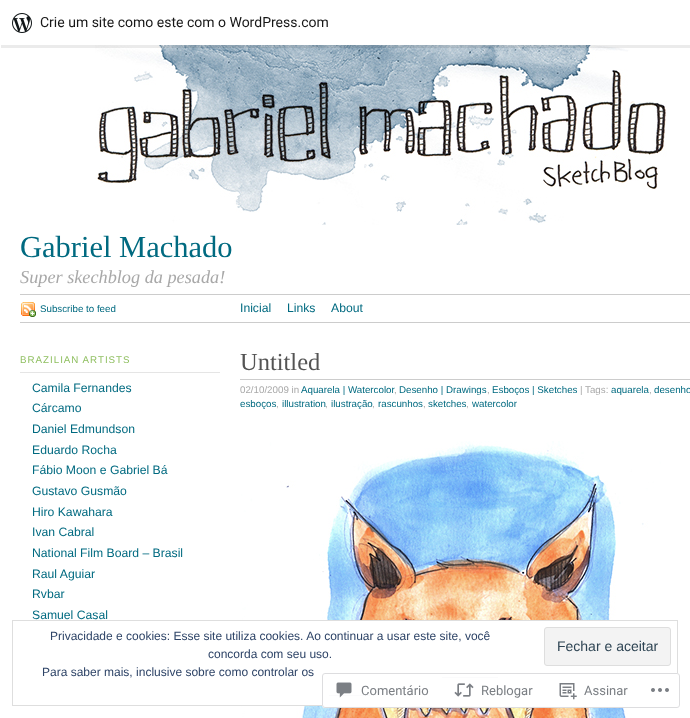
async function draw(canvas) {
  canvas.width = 690;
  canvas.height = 718;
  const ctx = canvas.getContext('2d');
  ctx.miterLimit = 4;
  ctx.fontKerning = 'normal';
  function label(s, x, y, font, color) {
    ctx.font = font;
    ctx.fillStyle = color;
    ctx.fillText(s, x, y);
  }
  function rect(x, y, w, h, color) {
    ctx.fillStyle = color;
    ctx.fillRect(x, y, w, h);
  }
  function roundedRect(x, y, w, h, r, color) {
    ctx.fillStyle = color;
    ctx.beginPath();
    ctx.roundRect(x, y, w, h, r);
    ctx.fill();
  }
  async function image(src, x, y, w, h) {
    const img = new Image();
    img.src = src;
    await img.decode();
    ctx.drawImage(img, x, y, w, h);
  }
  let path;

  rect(0, 0, 690, 718, '#fff');
  await image('assets/img2.png', 95, 45, 572, 180);
  ctx.fillStyle = '#00000014';
  path = new Path2D('M1 45V48H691V3H690V45Z');
  ctx.fill(path);
  await image('assets/img1.png', 12, 13, 20, 20);
  label('Crie um site como este com o WordPress.com', 40, 27, '14px Roboto', '#171717');
  rect(20, 294, 670, 1, '#ccc');
  label('Gabriel Machado', 20, 257, '30.5px Liberation Serif', '#006a80');
  label('Super skechblog da pesada!', 20, 283, 'italic 18.25px Liberation Serif', '#a8a8a8');
  rect(20, 322, 670, 1, '#ccc');
  await image('assets/img3.png', 21, 302, 15, 15);
  label('Subscribe to feed', 40, 312, '9.75px Liberation Sans', '#006a80');
  label('Inicial', 240, 312, '12.2px Liberation Sans', '#006a80');
  label('Links', 287, 312, '12.2px Liberation Sans', '#006a80');
  label('About', 331, 312, '12.2px Liberation Sans', '#006a80');
  rect(20, 372, 200, 1, '#e5e5e5');
  ctx.letterSpacing = '1px';
  label('BRAZILIAN ARTISTS', 20, 363, '9.75px Liberation Sans', '#8fbf60');
  ctx.letterSpacing = '0px';
  label('Camila Fernandes', 32, 392, '12.2px Liberation Sans', '#006a80');
  label('Cárcamo', 32, 412, '12.2px Liberation Sans', '#006a80');
  label('Daniel Edmundson', 32, 433, '12.2px Liberation Sans', '#006a80');
  label('Eduardo Rocha', 32, 454, '12.2px Liberation Sans', '#006a80');
  label('Fábio Moon e Gabriel Bá', 32, 474, '12.2px Liberation Sans', '#006a80');
  label('Gustavo Gusmão', 32, 495, '12.2px Liberation Sans', '#006a80');
  label('Hiro Kawahara', 32, 516, '12.2px Liberation Sans', '#006a80');
  label('Ivan Cabral', 32, 536, '12.2px Liberation Sans', '#006a80');
  label('National Film Board – Brasil', 32, 557, '12.2px Liberation Sans', '#006a80');
  label('Raul Aguiar', 32, 578, '12.2px Liberation Sans', '#006a80');
  label('Rvbar', 32, 598, '12.2px Liberation Sans', '#006a80');
  label('Samuel Casal', 32, 619, '12.2px Liberation Sans', '#006a80');
  rect(240, 379, 450, 1, '#ccc');
  label('Untitled', 240, 370, '24.5px Liberation Serif', '#545454');
  label('02/10/2009 in', 240, 393, '9.75px Liberation Sans', '#a8a8a8');
  label('Aquarela | Watercolor', 301, 393, '9.75px Liberation Sans', '#006a80');
  label(',', 394, 393, '9.75px Liberation Sans', '#a8a8a8');
  label('Desenho | Drawings', 399, 393, '9.75px Liberation Sans', '#006a80');
  label(',', 487, 393, '9.75px Liberation Sans', '#a8a8a8');
  label('Esboços | Sketches', 492, 393, '9.75px Liberation Sans', '#006a80');
  label('| Tags:', 580, 393, '9.75px Liberation Sans', '#a8a8a8');
  label('aquarela', 611, 393, '9.75px Liberation Sans', '#006a80');
  label(',', 649, 393, '9.75px Liberation Sans', '#a8a8a8');
  label('desenho', 654, 393, '9.75px Liberation Sans', '#006a80');
  label('esboços', 240, 407, '9.75px Liberation Sans', '#006a80');
  label(',', 276, 407, '9.75px Liberation Sans', '#a8a8a8');
  label('illustration', 282, 407, '9.75px Liberation Sans', '#006a80');
  label(',', 325, 407, '9.75px Liberation Sans', '#a8a8a8');
  label('ilustração', 331, 407, '9.75px Liberation Sans', '#006a80');
  label(',', 372, 407, '9.75px Liberation Sans', '#a8a8a8');
  label('rascunhos', 378, 407, '9.75px Liberation Sans', '#006a80');
  label(',', 423, 407, '9.75px Liberation Sans', '#a8a8a8');
  label('sketches', 428, 407, '9.75px Liberation Sans', '#006a80');
  label(',', 466, 407, '9.75px Liberation Sans', '#a8a8a8');
  label('watercolor', 472, 407, '9.75px Liberation Sans', '#006a80');
  await image('assets/img4.png', 241, 441, 433, 277);
  rect(241, 621, 433, 84, '#fff');
  ctx.strokeStyle = '#dedede';
  ctx.strokeRect(12.5, 620.5, 665, 85);
  label('Privacidade e cookies: Esse site utiliza cookies. Ao continuar a usar este site, você', 50, 640, '12px Liberation Sans', '#2e4467');
  ctx.fillStyle = '#f3f3f3';
  ctx.beginPath();
  ctx.roundRect(544.5, 627.5, 126, 38, 2.5);
  ctx.fill();
  ctx.stroke();
  label('Fechar e aceitar', 557, 651, '14px Liberation Sans', '#2e4453');
  label('concorda com seu uso.', 208, 658, '12px Liberation Sans', '#2e4467');
  label('Para saber mais, inclusive sobre como controlar os', 42, 676, '12px Liberation Sans', '#2e4467');
  rect(442, 677, 56, 1, '#2e4467');
  rect(329, 695, 41, 1, '#2e4467');
  roundedRect(322, 673, 358, 35, 3, '#fffffffa');
  ctx.beginPath();
  ctx.roundRect(322.5, 673.5, 357, 34, 2.5);
  ctx.strokeStyle = '#dcdcdefa';
  ctx.stroke();
  await image('assets/img5.png', 336, 682, 16, 16);
  label('Comentário', 361, 695, '13px Roboto', '#7b7f84');
  await image('assets/img6.png', 454, 683, 20, 14);
  label('Reblogar', 481, 695, '13px Roboto', '#7b7f84');
  await image('assets/img7.png', 559, 683, 18, 17);
  label('Assinar', 584, 695, '13px Roboto', '#7b7f84');
  await image('assets/img8.png', 651, 688, 18, 4);
}

draw(document.querySelector('canvas'));
